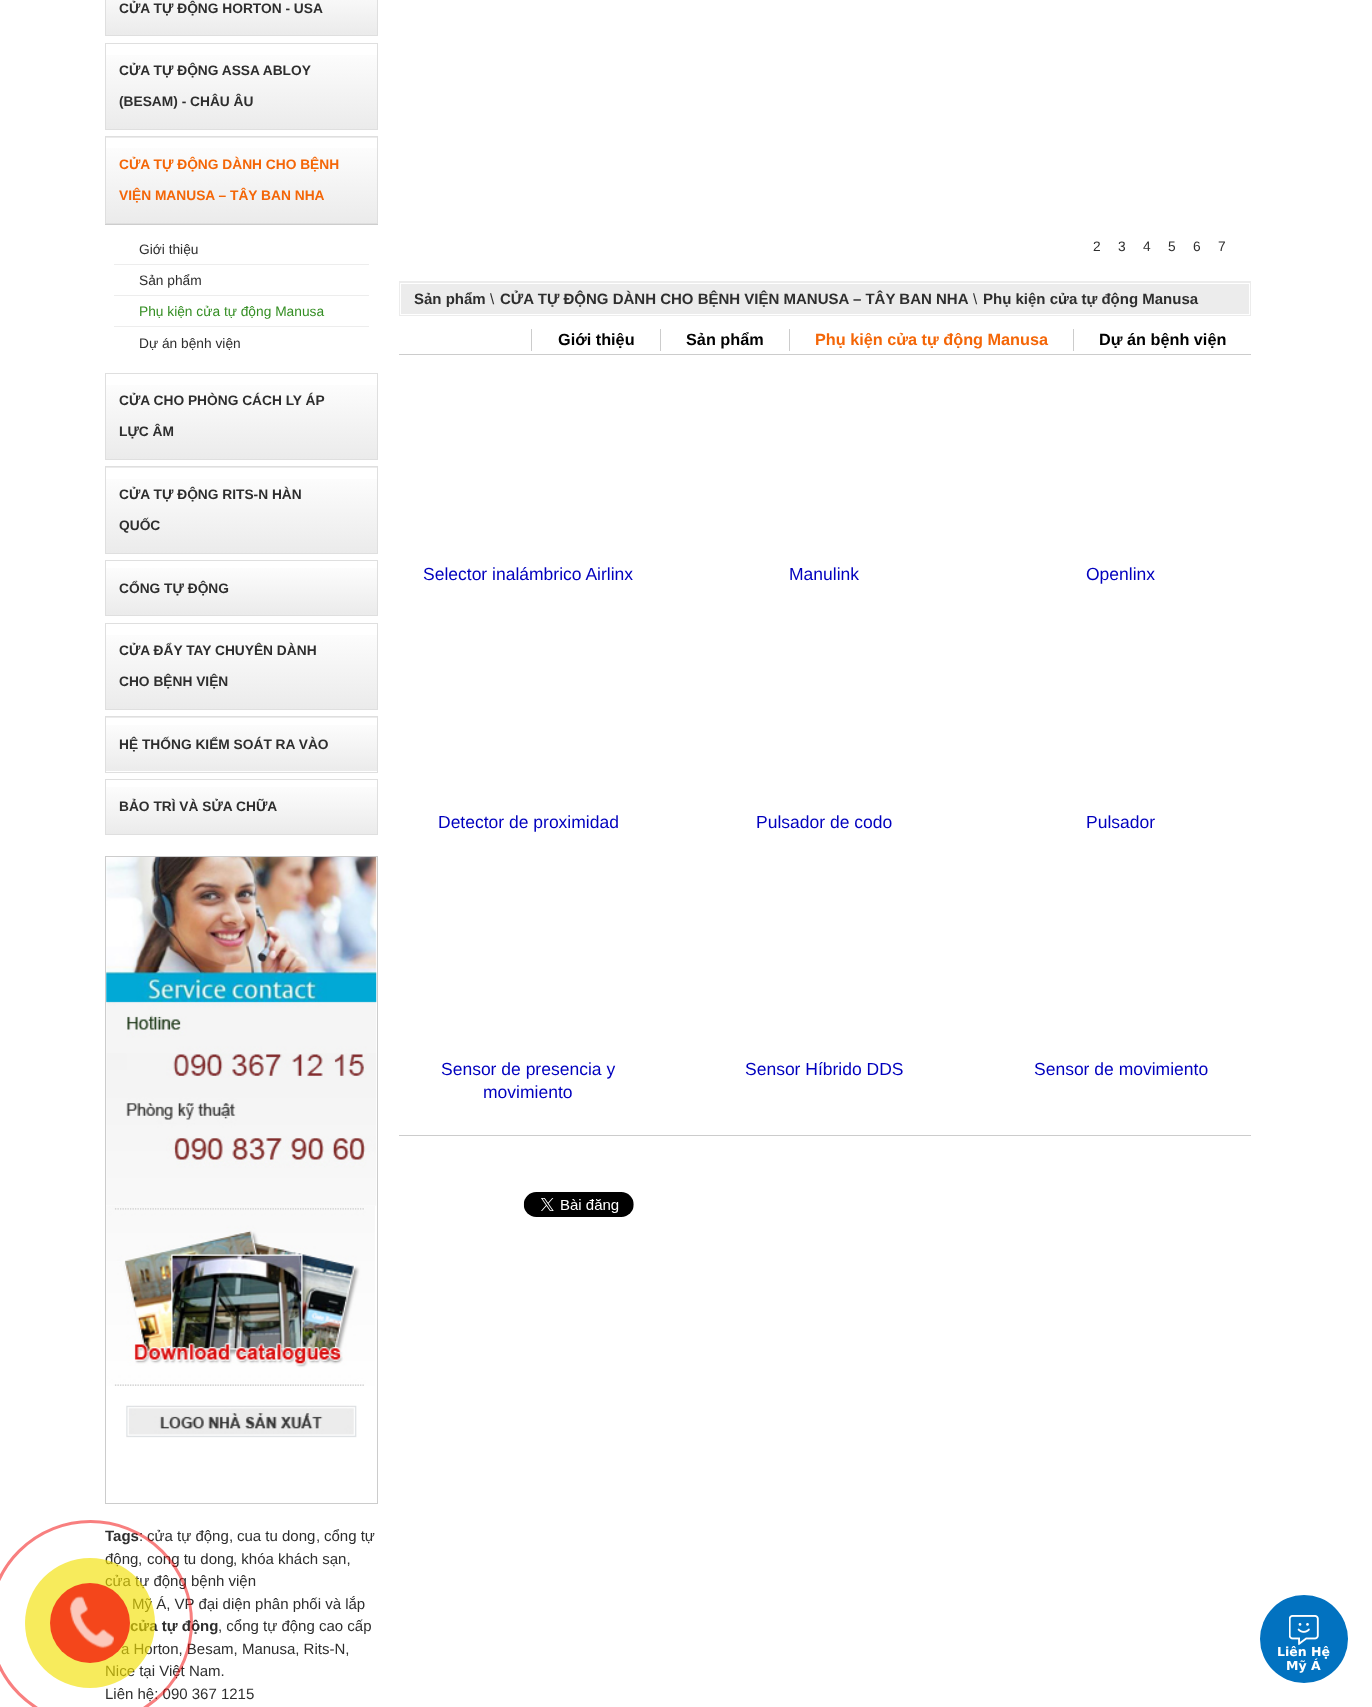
async function draw(canvas) {
  canvas.width = 1372;
  canvas.height = 1707;
  const ctx = canvas.getContext('2d');
  ctx.miterLimit = 4;
  ctx.fontKerning = 'normal';
  function label(s, x, y, font, color) {
    ctx.font = font;
    ctx.fillStyle = color;
    ctx.fillText(s, x, y);
  }
  function rect(x, y, w, h, color) {
    ctx.fillStyle = color;
    ctx.fillRect(x, y, w, h);
  }
  async function image(src, x, y, w, h) {
    const img = new Image();
    img.src = src;
    await img.decode();
    ctx.drawImage(img, x, y, w, h);
  }
  let gradient;

  rect(0, 0, 1372, 1707, '#fff');
  label('Tags', 105, 1541, 'bold 15px Liberation Sans', '#2e2e2e');
  label(':', 139, 1541, '15px Liberation Sans', '#2e2e2e');
  label('cửa tự động', 147, 1541, '15px Liberation Sans', '#2e2e2e');
  label('động', 105, 1564, '15px Liberation Sans', '#2e2e2e');
  label(',', 138, 1564, '15px Liberation Sans', '#2e2e2e');
  label('cong tu dong', 147, 1564, '15px Liberation Sans', '#2e2e2e');
  label('cửa tự động bệnh viện', 105, 1586, '15px Liberation Sans', '#2e2e2e');
  label('Mỹ Á, VP đại diện phân phối và lắp', 132, 1609, '15px Liberation Sans', '#2e2e2e');
  label('cửa tự động', 130, 1631, 'bold 15px Liberation Sans', '#2e2e2e');
  label('a Horton, Besam, Manusa, Rits-N,', 121, 1654, '15px Liberation Sans', '#2e2e2e');
  label('Nice tại Việt Nam.', 105, 1676, '15px Liberation Sans', '#2e2e2e');
  label('Liên hệ: 090 367 1215', 105, 1699, '15px Liberation Sans', '#2e2e2e');
  ctx.beginPath();
  ctx.arc(90.5, 1622.5, 101, 0, 2 * Math.PI);
  ctx.strokeStyle = '#f2000080';
  ctx.lineWidth = 3;
  ctx.stroke();
  ctx.fillStyle = '#f2df00a3';
  ctx.beginPath();
  ctx.arc(90, 1623, 65, 0, 2 * Math.PI);
  ctx.fill();
  ctx.fillStyle = '#f20000b3';
  ctx.beginPath();
  ctx.arc(90, 1623, 40, 0, 2 * Math.PI);
  ctx.fill();
  await image('assets/img1.png', 69, 1596, 45, 53);
  gradient = ctx.createLinearGradient(241, -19, 241, 35);
  gradient.addColorStop(0, '#fff');
  gradient.addColorStop(1, '#ebebeb');
  ctx.fillStyle = gradient;
  ctx.fillRect(106, 0, 271, 35);
  ctx.strokeStyle = '#dfdfdf';
  ctx.lineWidth = 1;
  ctx.strokeRect(105.5, -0.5, 272, 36);
  label('CỬA TỰ ĐỘNG HORTON - USA', 119, 13, 'bold 13.75px Liberation Sans', '#2e2e2e');
  gradient = ctx.createLinearGradient(241, 44, 241, 129);
  gradient.addColorStop(0, '#fff');
  gradient.addColorStop(1, '#ebebeb');
  ctx.fillStyle = gradient;
  ctx.fillRect(106, 55, 271, 74);
  ctx.strokeRect(105.5, 43.5, 272, 86);
  label('CỬA TỰ ĐỘNG ASSA ABLOY', 119, 75, 'bold 13.75px Liberation Sans', '#2e2e2e');
  label('(BESAM) - CHÂU ÂU', 119, 106, 'bold 13.75px Liberation Sans', '#2e2e2e');
  gradient = ctx.createLinearGradient(241, 52, 241, 138);
  gradient.addColorStop(0, '#fff');
  gradient.addColorStop(1, '#ebebeb');
  ctx.fillStyle = gradient;
  ctx.fillRect(105, 137, 273, 1);
  gradient = ctx.createLinearGradient(241, 137, 241, 223);
  gradient.addColorStop(0, '#fff');
  gradient.addColorStop(1, '#ebebeb');
  ctx.fillStyle = gradient;
  ctx.fillRect(106, 148, 271, 75);
  ctx.strokeRect(105.5, 136.5, 272, 87);
  label('CỬA TỰ ĐỘNG DÀNH CHO BỆNH', 119, 169, 'bold 13.75px Liberation Sans', '#f46607');
  label('VIỆN MANUSA – TÂY BAN NHA', 119, 200, 'bold 13.75px Liberation Sans', '#f46607');
  rect(105, 224, 273, 1, '#cdcdcd');
  rect(114, 264, 255, 1, '#ededed');
  label('Giới thiệu', 139, 254, '13.75px Liberation Sans', '#2e2e2e');
  rect(114, 295, 255, 1, '#ededed');
  label('Sản phẩm', 139, 285, '13.75px Liberation Sans', '#2e2e2e');
  rect(114, 326, 255, 1, '#ededed');
  label('Phụ kiện cửa tự động Manusa', 139, 316, '13.75px Liberation Sans', '#368f25');
  label('Dự án bệnh viện', 139, 348, '13.75px Liberation Sans', '#2e2e2e');
  gradient = ctx.createLinearGradient(241, 374, 241, 459);
  gradient.addColorStop(0, '#fff');
  gradient.addColorStop(1, '#ebebeb');
  ctx.fillStyle = gradient;
  ctx.fillRect(106, 385, 271, 74);
  ctx.strokeRect(105.5, 373.5, 272, 86);
  label('CỬA CHO PHÒNG CÁCH LY ÁP', 119, 405, 'bold 13.75px Liberation Sans', '#2e2e2e');
  label('LỰC ÂM', 119, 436, 'bold 13.75px Liberation Sans', '#2e2e2e');
  gradient = ctx.createLinearGradient(241, 383, 241, 468);
  gradient.addColorStop(0, '#fff');
  gradient.addColorStop(1, '#ebebeb');
  ctx.fillStyle = gradient;
  ctx.fillRect(105, 467, 273, 1);
  gradient = ctx.createLinearGradient(241, 468, 241, 553);
  gradient.addColorStop(0, '#fff');
  gradient.addColorStop(1, '#ebebeb');
  ctx.fillStyle = gradient;
  ctx.fillRect(106, 479, 271, 74);
  ctx.strokeRect(105.5, 466.5, 272, 87);
  label('CỬA TỰ ĐỘNG RITS-N HÀN', 119, 499, 'bold 13.75px Liberation Sans', '#2e2e2e');
  label('QUỐC', 119, 530, 'bold 13.75px Liberation Sans', '#2e2e2e');
  gradient = ctx.createLinearGradient(241, 561, 241, 615);
  gradient.addColorStop(0, '#fff');
  gradient.addColorStop(1, '#ebebeb');
  ctx.fillStyle = gradient;
  ctx.fillRect(106, 568, 271, 47);
  ctx.strokeRect(105.5, 560.5, 272, 55);
  label('CỔNG TỰ ĐỘNG', 119, 593, 'bold 13.75px Liberation Sans', '#2e2e2e');
  gradient = ctx.createLinearGradient(241, 624, 241, 709);
  gradient.addColorStop(0, '#fff');
  gradient.addColorStop(1, '#ebebeb');
  ctx.fillStyle = gradient;
  ctx.fillRect(106, 635, 271, 74);
  ctx.strokeRect(105.5, 623.5, 272, 86);
  label('CỬA ĐẨY TAY CHUYÊN DÀNH', 119, 655, 'bold 13.75px Liberation Sans', '#2e2e2e');
  label('CHO BỆNH VIỆN', 119, 686, 'bold 13.75px Liberation Sans', '#2e2e2e');
  gradient = ctx.createLinearGradient(241, 664, 241, 718);
  gradient.addColorStop(0, '#fff');
  gradient.addColorStop(1, '#ebebeb');
  ctx.fillStyle = gradient;
  ctx.fillRect(105, 717, 273, 1);
  gradient = ctx.createLinearGradient(241, 718, 241, 771);
  gradient.addColorStop(0, '#fff');
  gradient.addColorStop(1, '#ebebeb');
  ctx.fillStyle = gradient;
  ctx.fillRect(106, 725, 271, 46);
  ctx.strokeRect(105.5, 716.5, 272, 56);
  label('HỆ THỐNG KIỂM SOÁT RA VÀO', 119, 749, 'bold 13.75px Liberation Sans', '#2e2e2e');
  gradient = ctx.createLinearGradient(241, 780, 241, 834);
  gradient.addColorStop(0, '#fff');
  gradient.addColorStop(1, '#ebebeb');
  ctx.fillStyle = gradient;
  ctx.fillRect(106, 787, 271, 47);
  ctx.strokeRect(105.5, 779.5, 272, 55);
  label('BẢO TRÌ VÀ SỬA CHỮA', 119, 811, 'bold 13.75px Liberation Sans', '#2e2e2e');
  ctx.strokeStyle = '#ccc';
  ctx.strokeRect(105.5, 856.5, 272, 647);
  await image('assets/img2.png', 106, 857, 271, 349);
  await image('assets/img3.png', 106, 1206, 269, 180);
  await image('assets/img4.png', 126, 1405, 231, 33);
  label(',', 229, 1541, '15px Liberation Sans', '#2e2e2e');
  label('cua tu dong', 237, 1541, '15px Liberation Sans', '#2e2e2e');
  label(',', 316, 1541, '15px Liberation Sans', '#2e2e2e');
  label('cổng tự', 324, 1541, '15px Liberation Sans', '#2e2e2e');
  label(', khóa khách sạn,', 233, 1564, '15px Liberation Sans', '#2e2e2e');
  label(', cổng tự động cao cấp', 218, 1631, '15px Liberation Sans', '#2e2e2e');
  label('2', 1093, 251, '13.75px Liberation Sans', '#2e2e2e');
  label('3', 1118, 251, '13.75px Liberation Sans', '#2e2e2e');
  label('4', 1143, 251, '13.75px Liberation Sans', '#2e2e2e');
  label('5', 1168, 251, '13.75px Liberation Sans', '#2e2e2e');
  label('6', 1193, 251, '13.75px Liberation Sans', '#2e2e2e');
  label('7', 1218, 251, '13.75px Liberation Sans', '#2e2e2e');
  rect(399, 281, 852, 35, '#ececec');
  ctx.strokeStyle = '#fff';
  ctx.strokeRect(400.5, 283.5, 849, 31);
  label('Sản phẩm', 414, 304, 'bold 15px Liberation Sans', '#2e2e2e');
  label('\\', 490, 304, '15px Liberation Sans', '#2e2e2e');
  label('CỬA TỰ ĐỘNG DÀNH CHO BỆNH VIỆN MANUSA – TÂY BAN NHA', 500, 304, 'bold 15px Liberation Sans', '#2e2e2e');
  label('\\', 973, 304, '15px Liberation Sans', '#2e2e2e');
  label('Phụ kiện cửa tự động Manusa', 983, 304, 'bold 15px Liberation Sans', '#2e2e2e');
  rect(399, 354, 852, 1, '#ccc');
  rect(531, 329, 1, 22, '#ccc');
  label('Giới thiệu', 558, 345, 'bold 16.25px Liberation Sans', '#000');
  rect(660, 329, 1, 22, '#ccc');
  label('Sản phẩm', 686, 345, 'bold 16.25px Liberation Sans', '#000');
  rect(789, 329, 1, 22, '#ccc');
  label('Phụ kiện cửa tự động Manusa', 815, 345, 'bold 16.25px Liberation Sans', '#f46607');
  rect(1073, 329, 1, 22, '#ccc');
  label('Dự án bệnh viện', 1099, 345, 'bold 16.25px Liberation Sans', '#000');
  rect(399, 1135, 852, 1, '#ccc');
  label('Selector inalámbrico Airlinx', 423, 580, '17.5px Liberation Sans', '#0100be');
  label('Manulink', 789, 580, '17.5px Liberation Sans', '#0100be');
  label('Openlinx', 1086, 580, '17.5px Liberation Sans', '#0100be');
  label('Detector de proximidad', 438, 828, '17.5px Liberation Sans', '#0100be');
  label('Pulsador de codo', 756, 828, '17.5px Liberation Sans', '#0100be');
  label('Pulsador', 1086, 828, '17.5px Liberation Sans', '#0100be');
  label('Sensor de presencia y', 441, 1075, '17.5px Liberation Sans', '#0100be');
  label('movimiento', 483, 1098, '17.5px Liberation Sans', '#0100be');
  label('Sensor Híbrido DDS', 745, 1075, '17.5px Liberation Sans', '#0100be');
  label('Sensor de movimiento', 1034, 1075, '17.5px Liberation Sans', '#0100be');
  await image('assets/img5.png', 523, 1192, 111, 25);
  ctx.fillStyle = '#0272c0';
  ctx.beginPath();
  ctx.arc(1304, 1639, 44, 0, 2 * Math.PI);
  ctx.fill();
  await image('assets/img6.png', 1289, 1615, 30, 30);
  label('Liên Hệ', 1277, 1656, 'bold 12.5px DejaVu Sans', '#fff');
  label('Mỹ Á', 1286, 1670, 'bold 12.5px DejaVu Sans', '#fff');
}

draw(document.querySelector('canvas'));
